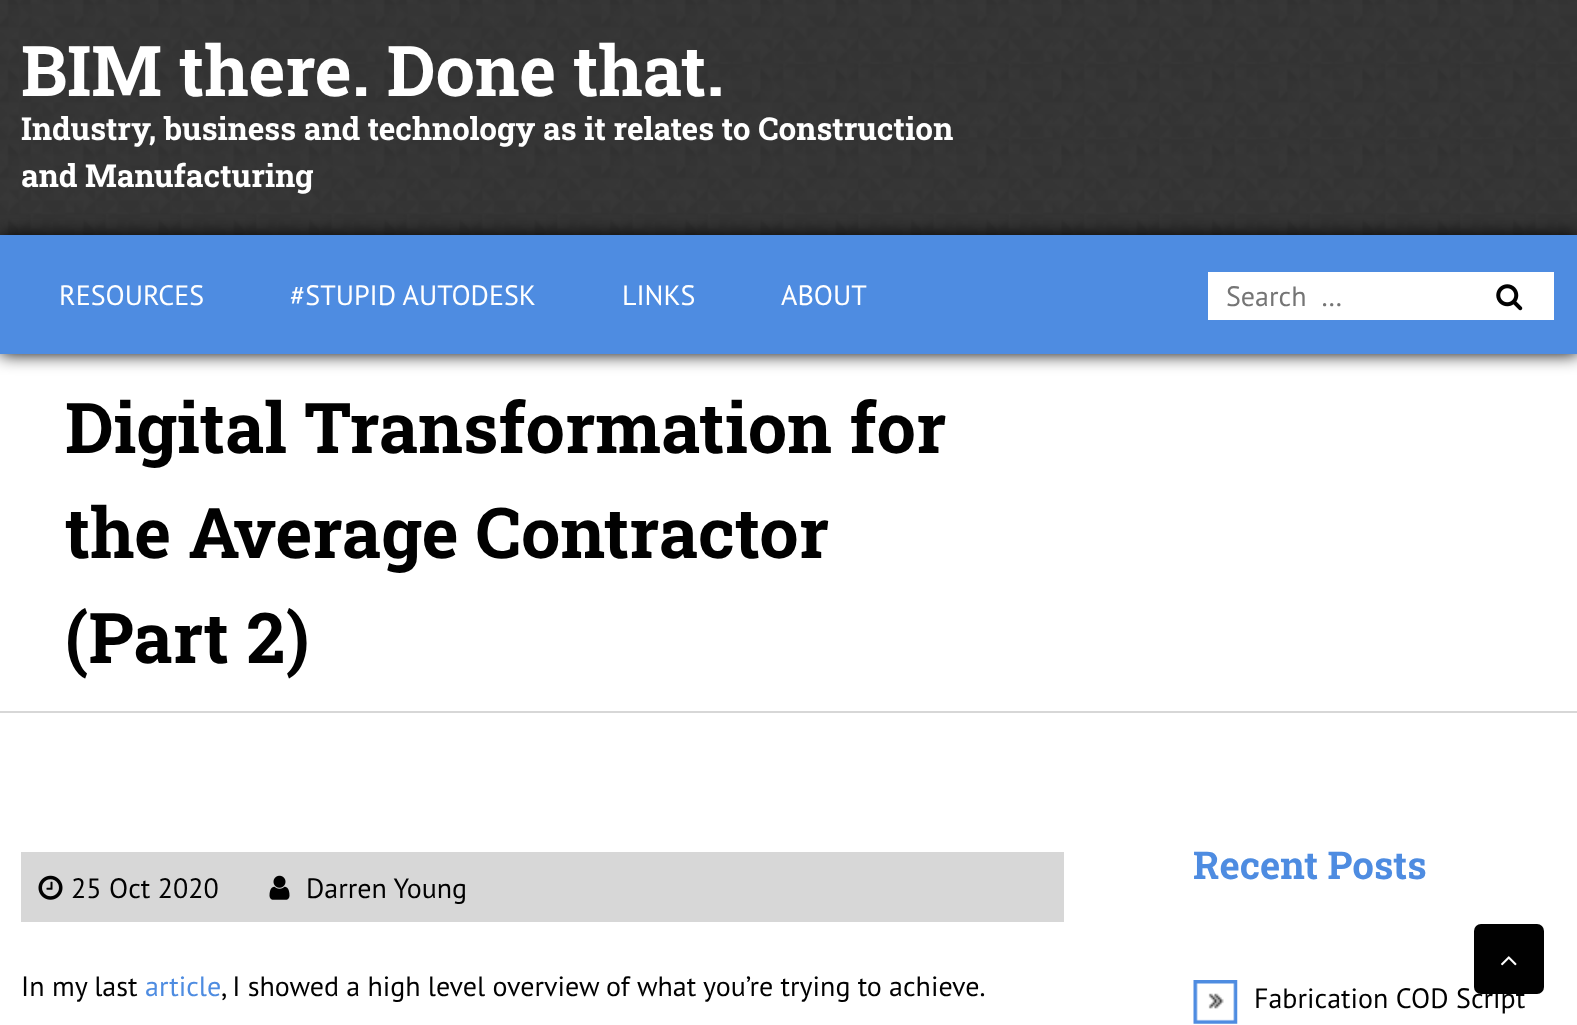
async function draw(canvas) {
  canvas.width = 1577;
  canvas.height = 1025;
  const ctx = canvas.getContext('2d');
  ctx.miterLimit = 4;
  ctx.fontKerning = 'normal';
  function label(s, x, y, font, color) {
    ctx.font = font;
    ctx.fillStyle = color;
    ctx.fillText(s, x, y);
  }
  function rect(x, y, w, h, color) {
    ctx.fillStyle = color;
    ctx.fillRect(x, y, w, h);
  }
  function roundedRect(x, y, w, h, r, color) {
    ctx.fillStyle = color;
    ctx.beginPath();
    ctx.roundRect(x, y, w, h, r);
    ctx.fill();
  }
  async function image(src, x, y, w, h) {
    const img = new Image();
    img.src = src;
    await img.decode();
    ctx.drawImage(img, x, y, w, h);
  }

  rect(0, 0, 1577, 1025, '#fff');
  await image('assets/img1.png', 0, 0, 1577, 235);
  label('BIM there. Done that.', 21, 96, 'bold 70px Roboto Slab', '#fff');
  label('Industry, business and technology as it relates to Construction', 21, 140, 'bold 31.5px Roboto Slab', '#fff');
  label('and Manufacturing', 21, 187, 'bold 31.5px Roboto Slab', '#fff');
  ctx.fillStyle = '#000';
  ctx.filter = 'blur(9px)';
  ctx.beginPath();
  ctx.rect(0, 235, 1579, 119);
  ctx.fill();
  ctx.filter = 'none';
  rect(0, 235, 1577, 119, '#4e8ce1');
  label('RESOURCES', 59, 305, '28px PT Sans', '#fff');
  label('#STUPID AUTODESK', 290, 305, '28px PT Sans', '#fff');
  label('LINKS', 622, 305, '28px PT Sans', '#fff');
  label('ABOUT', 781, 305, '28px PT Sans', '#fff');
  rect(1208, 272, 346, 48, '#fff');
  label('Search  …', 1226, 306, '28px PT Sans', '#757575');
  await image('assets/img2.png', 1496, 284, 27, 27);
  rect(0, 711, 1577, 2, '#d7d7d7');
  label('Digital Transformation for', 65, 453, 'bold 70px Roboto Slab', '#010101');
  label('the Average Contractor', 65, 558, 'bold 70px Roboto Slab', '#010101');
  label('(Part 2)', 65, 663, 'bold 70px Roboto Slab', '#010101');
  rect(21, 852, 1043, 70, '#d7d7d7');
  await image('assets/img3.png', 38, 875, 25, 25);
  label('25 Oct 2020', 71, 898, '28px PT Sans', '#010101');
  await image('assets/img4.png', 269, 875, 21, 25);
  label('Darren Young', 306, 898, '28px PT Sans', '#010101');
  label('In my last', 21, 996, '28px PT Sans', '#010101');
  label('article', 145, 996, '28px PT Sans', '#4e8ce1');
  ctx.wordSpacing = '-0.25px';
  label(', I showed a high level overview of what you’re trying to achieve.', 221, 996, '28px PT Sans', '#010101');
  ctx.wordSpacing = '0px';
  label('Recent Posts', 1193, 879, 'bold 38.5px Roboto Slab', '#4e8ce1');
  await image('assets/img5.png', 1193, 980, 45, 44);
  label('Fabrication COD Script', 1254, 1008, '28px PT Sans', '#010101');
  roundedRect(1474, 924, 70, 70, 7, '#010101');
  await image('assets/img6.png', 1501, 956, 16, 10);
}

draw(document.querySelector('canvas'));
